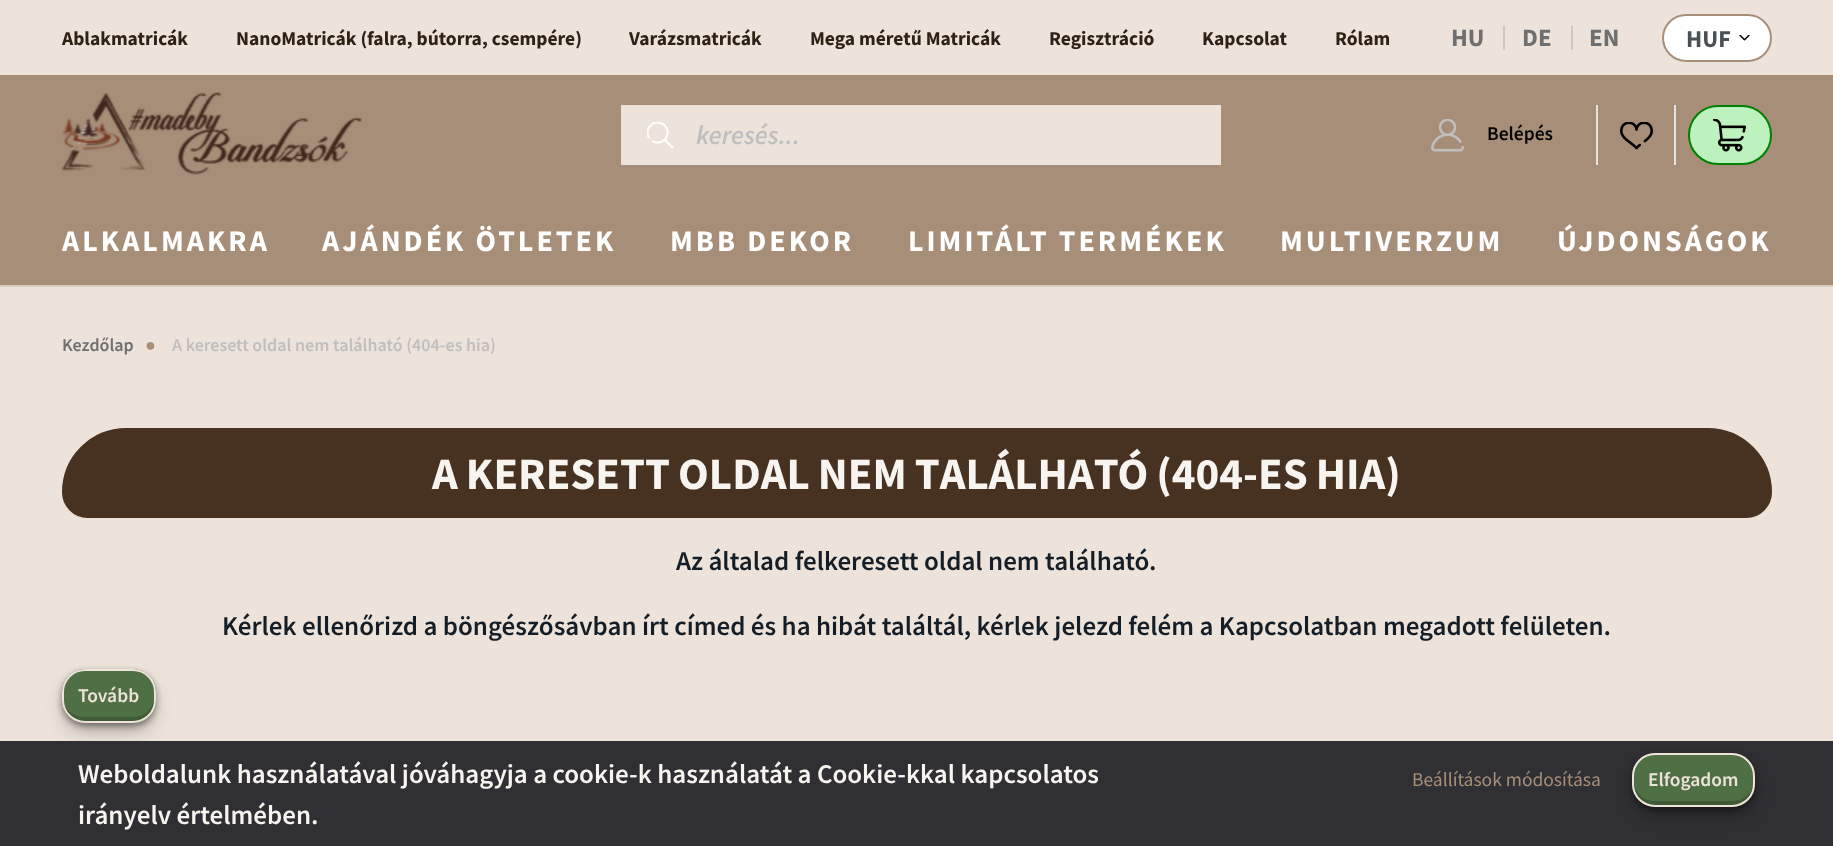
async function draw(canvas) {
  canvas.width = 1833;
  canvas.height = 846;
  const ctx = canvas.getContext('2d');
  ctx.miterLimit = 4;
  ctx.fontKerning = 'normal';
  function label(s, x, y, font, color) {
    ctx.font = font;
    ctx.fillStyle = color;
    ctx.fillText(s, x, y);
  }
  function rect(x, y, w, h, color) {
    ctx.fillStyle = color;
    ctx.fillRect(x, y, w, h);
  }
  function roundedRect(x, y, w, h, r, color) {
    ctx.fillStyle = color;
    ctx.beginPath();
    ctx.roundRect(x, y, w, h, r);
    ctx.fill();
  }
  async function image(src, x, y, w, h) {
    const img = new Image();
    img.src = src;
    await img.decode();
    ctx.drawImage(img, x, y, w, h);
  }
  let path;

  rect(0, 0, 1833, 846, '#ede3da');
  rect(0, 285, 1833, 2, '#d5ccc4');
  label('Ablakmatricák', 62, 45, 'bold 19.5px Source Sans Pro', '#302115');
  label('NanoMatricák (falra, bútorra, csempére)', 236, 45, 'bold 19.5px Source Sans Pro', '#302115');
  label('Varázsmatricák', 629, 45, 'bold 19.5px Source Sans Pro', '#302115');
  label('Mega méretű Matricák', 810, 45, 'bold 19.5px Source Sans Pro', '#302115');
  label('Regisztráció', 1049, 45, 'bold 19.5px Source Sans Pro', '#302115');
  label('Kapcsolat', 1202, 45, 'bold 19.5px Source Sans Pro', '#302115');
  label('Rólam', 1335, 45, 'bold 19.5px Source Sans Pro', '#302115');
  label('HU', 1451, 46, 'bold 25px Source Sans Pro', '#6f6f6f');
  rect(1503, 26, 2, 24, '#c8c8c8');
  label('DE', 1522, 46, 'bold 25px Source Sans Pro', '#6f6f6f');
  rect(1571, 26, 2, 24, '#c8c8c8');
  label('EN', 1589, 46, 'bold 25px Source Sans Pro', '#6f6f6f');
  roundedRect(1662, 14, 110, 48, 24, '#fff');
  await image('assets/img1.png', 1739, 35, 11, 6);
  ctx.beginPath();
  ctx.roundRect(1663, 15, 108, 46, 23);
  ctx.strokeStyle = '#a78e78';
  ctx.lineWidth = 2;
  ctx.stroke();
  label('HUF', 1686, 47, 'bold 24px Source Sans Pro', '#495057');
  rect(0, 75, 1833, 210, '#a78e78');
  await image('assets/img2.png', 61, 92, 301, 83);
  rect(621, 105, 600, 60, '#ede3da');
  await image('assets/img3.png', 647, 122, 27, 27);
  label('keresés...', 696, 144, 'italic 600 26.5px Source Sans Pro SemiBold', '#bfbfbf');
  await image('assets/img4.png', 1431, 119, 33, 33);
  label('Belépés', 1487, 140, '600 19.5px Source Sans Pro SemiBold', '#000');
  rect(1596, 105, 2, 60, '#e4e4e4');
  await image('assets/img5.png', 1620, 122, 33, 28);
  rect(1674, 105, 2, 60, '#e4e4e4');
  ctx.fillStyle = '#bdf1bd';
  ctx.beginPath();
  ctx.roundRect(1689, 106, 82, 58, 29);
  ctx.fill();
  ctx.strokeStyle = '#008000';
  ctx.stroke();
  await image('assets/img6.png', 1713, 119, 33, 33);
  ctx.letterSpacing = '3px';
  label('ALKALMAKRA', 62, 251, 'bold 30px Source Sans Pro', '#fff');
  label('AJÁNDÉK ÖTLETEK', 322, 251, 'bold 30px Source Sans Pro', '#fff');
  label('MBB DEKOR', 670, 251, 'bold 30px Source Sans Pro', '#fff');
  label('LIMITÁLT TERMÉKEK', 908, 251, 'bold 30px Source Sans Pro', '#fff');
  label('MULTIVERZUM', 1280, 251, 'bold 30px Source Sans Pro', '#fff');
  label('ÚJDONSÁGOK', 1557, 251, 'bold 30px Source Sans Pro', '#fff');
  ctx.letterSpacing = '0px';
  label('Kezdőlap', 62, 351, '600 18px Source Sans Pro SemiBold', '#6f6f6f');
  label('●', 145, 351, 'bold 18px Liberation Sans', '#a78e78');
  label('A keresett oldal nem található (404-es hia)', 172, 351, '600 18px Source Sans Pro SemiBold', '#bfbfbf');
  ctx.fillStyle = '#473221';
  ctx.beginPath();
  ctx.roundRect(63.5, 429.5, 1707, 87, [62.79, 62.79, 24.21, 24.21]);
  ctx.fill();
  ctx.strokeStyle = '#473221';
  ctx.lineWidth = 3;
  ctx.stroke();
  ctx.wordSpacing = '-1px';
  label('A KERESETT OLDAL NEM TALÁLHATÓ (404-ES HIA)', 432, 489, 'bold 45px Source Sans Pro', '#f8f4f0');
  ctx.wordSpacing = '0px';
  label('Az általad felkeresett oldal nem található.', 676, 570, '600 27px Source Sans Pro SemiBold', '#151e26');
  label('Kérlek ellenőrizd a böngészősávban írt címed és ha hibát találtál, kérlek jelezd felém a Kapcsolatban megadott felületen.', 222, 635, '600 27px Source Sans Pro SemiBold', '#151e26');
  ctx.fillStyle = '#0000004d';
  ctx.filter = 'blur(10px)';
  ctx.beginPath();
  ctx.roundRect(66, 684, 86, 45, 18);
  ctx.fill();
  ctx.filter = 'none';
  ctx.fillStyle = '#00000066';
  ctx.filter = 'blur(3px)';
  ctx.beginPath();
  ctx.roundRect(62, 672, 94, 54, 23);
  ctx.fill();
  ctx.filter = 'none';
  roundedRect(62, 669, 94, 54, 23, '#4f7045');
  ctx.fillStyle = '#3f5a37';
  path = new Path2D('M63 696V701C63 713 72 722 84 722H134C146 722 155 713 155 701V692C155 690 155 687 154 685V696C154 708 145 717 134 717H84C72 717 63 708 63 696Z');
  ctx.fill(path);
  ctx.beginPath();
  ctx.roundRect(63, 670, 92, 52, 22);
  ctx.strokeStyle = '#ede3da';
  ctx.lineWidth = 2;
  ctx.stroke();
  label('Tovább', 78, 702, '600 19.5px Source Sans Pro SemiBold', '#ede3da');
  rect(0, 741, 1833, 105, '#302f34');
  label('Weboldalunk használatával jóváhagyja a cookie-k használatát a Cookie-kkal kapcsolatos', 78, 783, '600 27px Source Sans Pro SemiBold', '#f8f4f0');
  label('irányelv értelmében.', 78, 824, '600 27px Source Sans Pro SemiBold', '#f8f4f0');
  label('Beállítások módosítása', 1412, 786, '19.5px Source Sans Pro', '#a78e78');
  ctx.fillStyle = '#0000004d';
  ctx.filter = 'blur(10px)';
  ctx.beginPath();
  ctx.roundRect(1637, 768, 114, 45, 18);
  ctx.fill();
  ctx.filter = 'none';
  ctx.fillStyle = '#00000066';
  ctx.filter = 'blur(3px)';
  ctx.beginPath();
  ctx.roundRect(1632, 756, 123, 54, 23);
  ctx.fill();
  ctx.filter = 'none';
  roundedRect(1632, 753, 123, 54, 23, '#4f7045');
  ctx.fillStyle = '#3f5a37';
  path = new Path2D('M1634 780V785C1634 797 1643 806 1655 806H1733C1745 806 1754 797 1754 785V780C1754 792 1744 801 1732 801H1654C1643 801 1634 792 1634 780Z');
  ctx.fill(path);
  ctx.beginPath();
  ctx.roundRect(1633, 754, 121, 52, 22);
  ctx.stroke();
  label('Elfogadom', 1648, 786, '600 19.5px Source Sans Pro SemiBold', '#ede3da');
}

draw(document.querySelector('canvas'));
